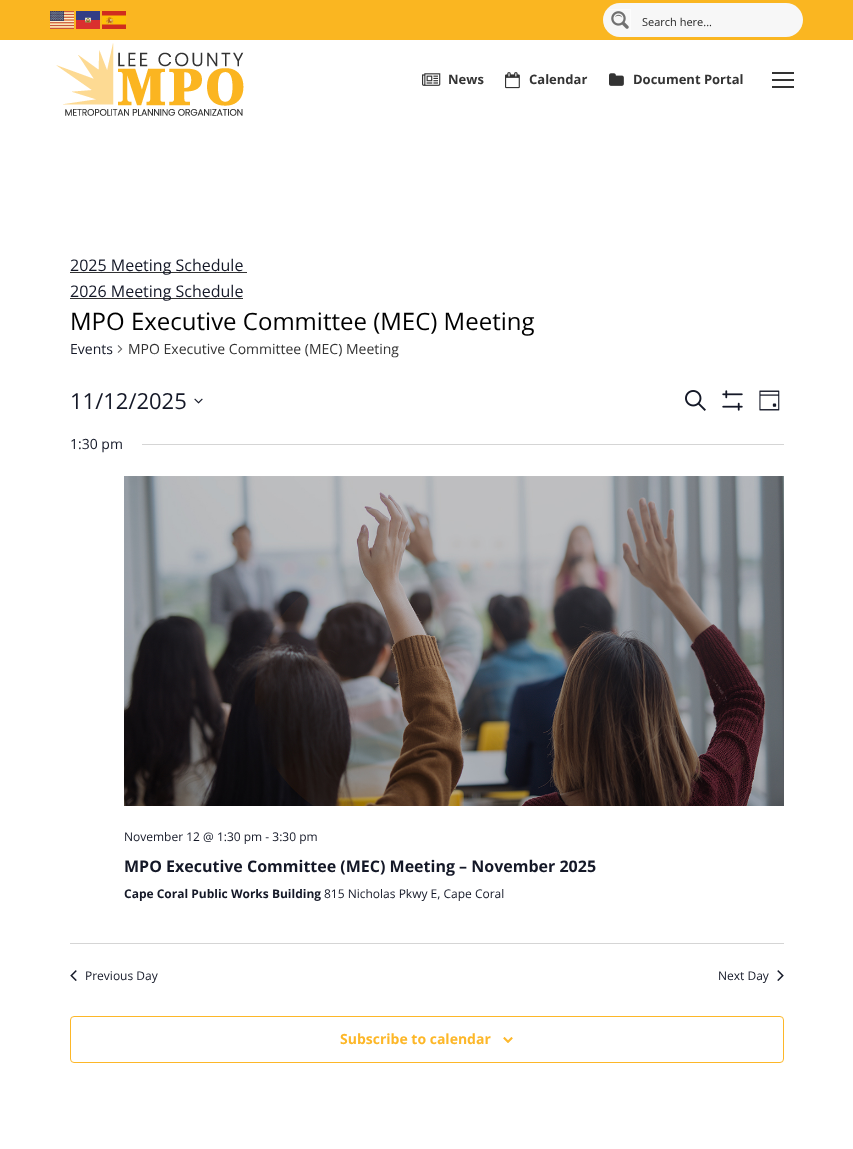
async function draw(canvas) {
  canvas.width = 853;
  canvas.height = 1149;
  const ctx = canvas.getContext('2d');
  ctx.miterLimit = 4;
  ctx.fontKerning = 'normal';
  function label(s, x, y, font, color) {
    ctx.font = font;
    ctx.fillStyle = color;
    ctx.fillText(s, x, y);
  }
  function rect(x, y, w, h, color) {
    ctx.fillStyle = color;
    ctx.fillRect(x, y, w, h);
  }
  function roundedRect(x, y, w, h, r, color) {
    ctx.fillStyle = color;
    ctx.beginPath();
    ctx.roundRect(x, y, w, h, r);
    ctx.fill();
  }
  async function image(src, x, y, w, h) {
    const img = new Image();
    img.src = src;
    await img.decode();
    ctx.drawImage(img, x, y, w, h);
  }
  let path;

  rect(0, 0, 853, 1149, '#fff');
  rect(0, 0, 853, 40, '#fab621');
  await image('assets/img1.png', 50, 11, 24, 18);
  await image('assets/img2.png', 76, 11, 24, 18);
  await image('assets/img3.png', 102, 11, 24, 18);
  roundedRect(603, 3, 200, 34, 17, '#f7f7f7');
  ctx.save();
  ctx.beginPath();
  ctx.rect(609, 9, 22, 22);
  ctx.clip();
  ctx.fillStyle = '#fcfcfc';
  path = new Path2D('M620 3H730V37H620C611 37 603 29 603 20C603 11 611 3 620 3ZM608 10V32H630V10Z');
  ctx.fill(path, 'evenodd');
  ctx.restore();
  await image('assets/img4.png', 611, 11, 18, 18);
  label('Search here...', 642, 26, '11px Open Sans', '#252525');
  await image('assets/img5.png', 56, 43, 188, 73);
  await image('assets/img6.png', 422, 73, 19, 13);
  label('News', 448, 84, 'bold 13px Open Sans', '#333');
  await image('assets/img7.png', 505, 72, 15, 17);
  label('Calendar', 529, 84, 'bold 13px Open Sans', '#333');
  await image('assets/img8.png', 609, 73, 15, 13);
  label('Document Portal', 633, 84, 'bold 13px Open Sans', '#333');
  rect(772, 72, 22, 2, '#333');
  rect(772, 79, 22, 2, '#333');
  rect(772, 86, 22, 2, '#333');
  rect(70, 272, 177, 1, '#333');
  label('2025 Meeting Schedule', 70, 271, '16px Open Sans', '#141827');
  rect(70, 298, 173, 1, '#333');
  label('2026 Meeting Schedule', 70, 297, '16px Open Sans', '#141827');
  label('MPO Executive Committee (MEC) Meeting', 70, 330, '24px Open Sans', '#000');
  label('Events', 70, 354, '14px Open Sans', '#141827');
  await image('assets/img9.png', 117, 345, 6, 8);
  label('MPO Executive Committee (MEC) Meeting', 128, 354, '14px Open Sans', '#333');
  label('11/12/2025', 70, 409, '22px Open Sans', '#141827');
  await image('assets/img10.png', 194, 398, 9, 6);
  await image('assets/img11.png', 685, 390, 21, 21);
  await image('assets/img12.png', 722, 390, 21, 21);
  await image('assets/img13.png', 759, 390, 21, 21);
  label('1:30 pm', 70, 449, '14px Open Sans', '#141827');
  rect(142, 444, 642, 1, '#d5d5d5');
  await image('assets/img14.png', 124, 476, 660, 330);
  label('November 12 @ 1:30 pm - 3:30 pm', 124, 841, '12px Open Sans', '#141827');
  label('MPO Executive Committee (MEC) Meeting – November 2025', 124, 872, 'bold 16px Open Sans', '#141827');
  label('Cape Coral Public Works Building', 124, 898, 'bold 12px Open Sans', '#141827');
  label('815 Nicholas Pkwy E, Cape Coral', 324, 898, '12px Open Sans', '#141827');
  rect(70, 943, 714, 1, '#d5d5d5');
  await image('assets/img15.png', 70, 970, 7, 11);
  label('Previous Day', 85, 980, '12px Open Sans', '#141827');
  label('Next Day', 718, 980, '12px Open Sans', '#141827');
  await image('assets/img16.png', 777, 970, 7, 11);
  ctx.beginPath();
  ctx.roundRect(70.5, 1016.5, 713, 46, 3.5);
  ctx.strokeStyle = '#fdb728';
  ctx.stroke();
  label('Subscribe to calendar', 340, 1044, 'bold 14px Open Sans', '#fdb728');
  await image('assets/img17.png', 503, 1037, 10, 6);
}

draw(document.querySelector('canvas'));
